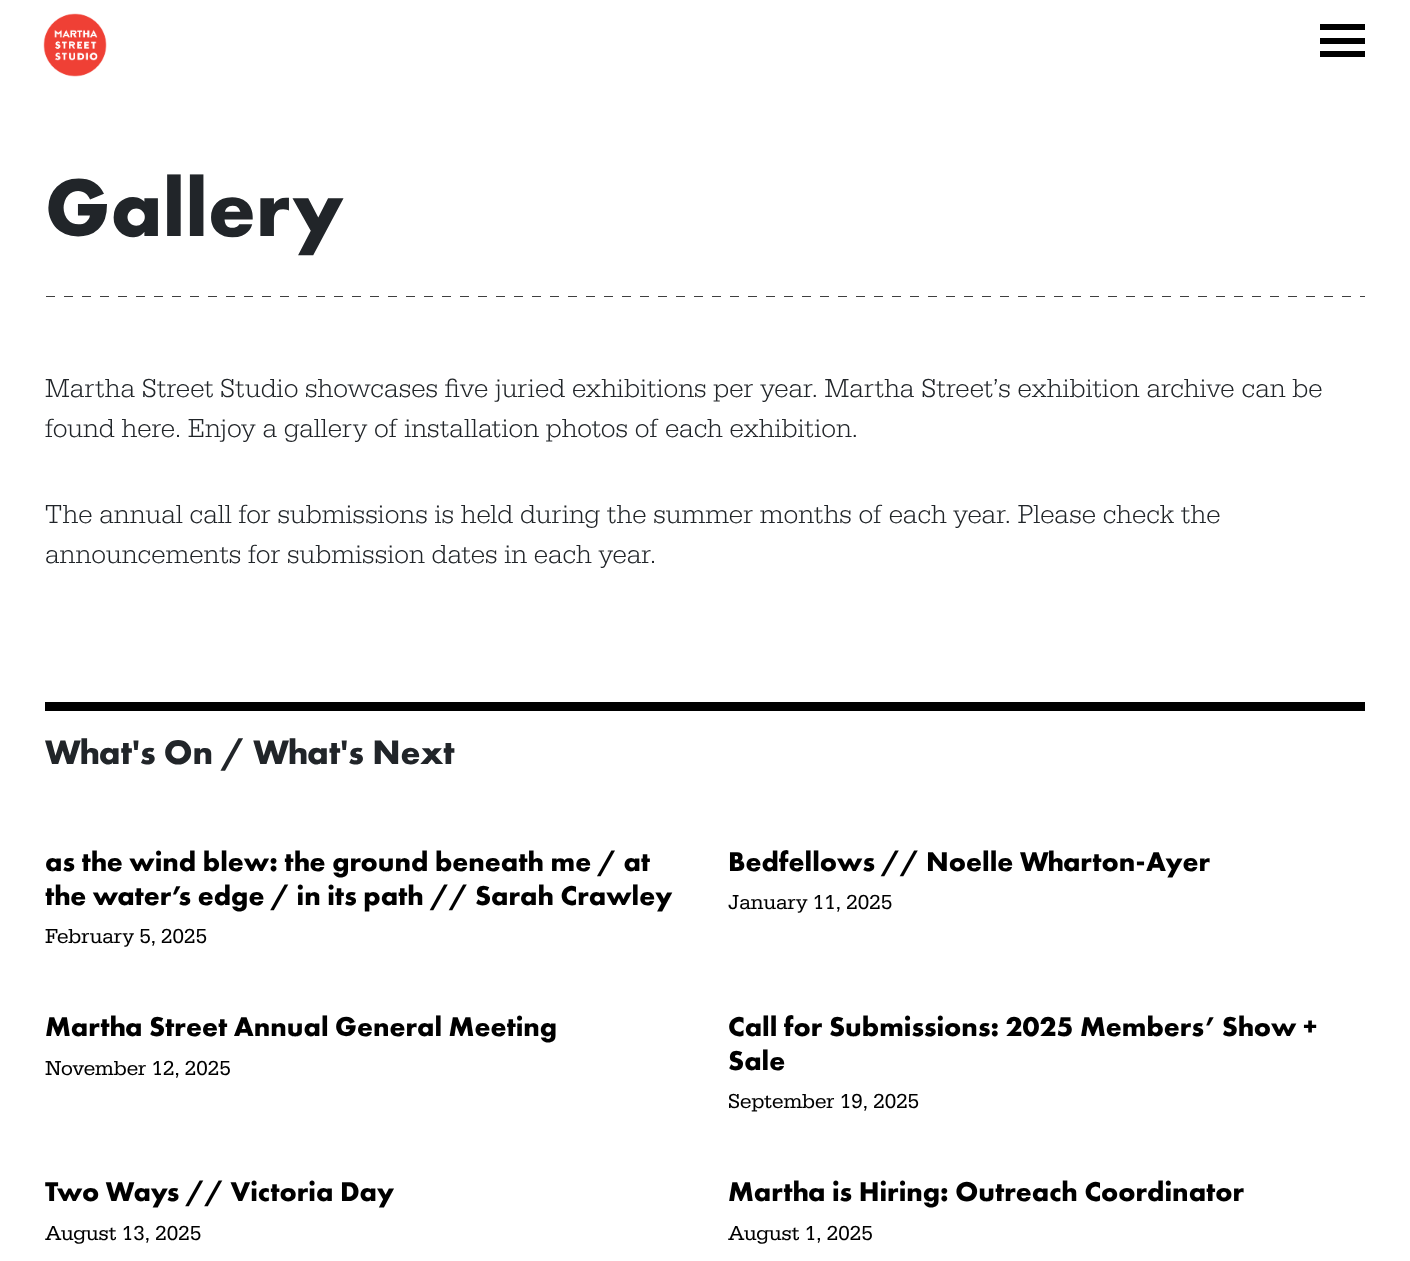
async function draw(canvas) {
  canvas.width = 1410;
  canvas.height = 1261;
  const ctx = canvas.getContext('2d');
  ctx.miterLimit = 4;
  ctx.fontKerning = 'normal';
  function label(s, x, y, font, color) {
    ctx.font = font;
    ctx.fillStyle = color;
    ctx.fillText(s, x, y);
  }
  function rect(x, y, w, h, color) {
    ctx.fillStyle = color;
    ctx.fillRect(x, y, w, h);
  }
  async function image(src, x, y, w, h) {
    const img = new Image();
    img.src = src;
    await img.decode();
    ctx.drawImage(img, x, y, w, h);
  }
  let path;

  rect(0, 0, 1410, 1261, '#fff');
  await image('assets/img1.png', 43, 13, 64, 64);
  rect(1320, 38, 45, 6, '#000');
  rect(1320, 24, 45, 6, '#000');
  rect(1320, 51, 45, 6, '#000');
  label('Gallery', 45, 236, 'bold 84.5px Futura PT', '#212529');
  ctx.save();
  ctx.beginPath();
  ctx.rect(45, 296, 1320, 2);
  ctx.clip();
  path = new Path2D('M46 296H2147');
  ctx.strokeStyle = '#000';
  ctx.lineWidth = 1.5;
  ctx.setLineDash([9, 9]);
  ctx.stroke(path);
  ctx.restore();
  label('Martha Street Studio showcases five juried exhibitions per year. Martha Street’s exhibition archive can be', 45, 397, '300 27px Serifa', '#212529');
  label('found here. Enjoy a gallery of installation photos of each exhibition.', 45, 437, '300 27px Serifa', '#212529');
  label('The annual call for submissions is held during the summer months of each year. Please check the', 45, 523, '300 27px Serifa', '#212529');
  label('announcements for submission dates in each year.', 45, 563, '300 27px Serifa', '#212529');
  rect(45, 702, 1320, 9, '#000');
  label('What\'s On / What\'s Next', 45, 764, 'bold 35.25px Futura PT', '#212529');
  label('as the wind blew: the ground beneath me / at', 45, 871, 'bold 28.25px Futura PT', '#000');
  label('the water’s edge / in its path // Sarah Crawley', 45, 905, 'bold 28.25px Futura PT', '#000');
  label('February 5, 2025', 45, 943, '21px Serifa', '#000');
  label('Bedfellows // Noelle Wharton-Ayer', 728, 871, 'bold 28.25px Futura PT', '#000');
  label('January 11, 2025', 728, 909, '21px Serifa', '#000');
  label('Martha Street Annual General Meeting', 45, 1036, 'bold 28.25px Futura PT', '#000');
  label('November 12, 2025', 45, 1075, '21px Serifa', '#000');
  label('Call for Submissions: 2025 Members’ Show +', 728, 1036, 'bold 28.25px Futura PT', '#000');
  label('Sale', 728, 1070, 'bold 28.25px Futura PT', '#000');
  label('September 19, 2025', 728, 1108, '21px Serifa', '#000');
  label('Two Ways // Victoria Day', 45, 1201, 'bold 28.25px Futura PT', '#000');
  label('August 13, 2025', 45, 1240, '21px Serifa', '#000');
  label('Martha is Hiring: Outreach Coordinator', 728, 1201, 'bold 28.25px Futura PT', '#000');
  label('August 1, 2025', 728, 1240, '21px Serifa', '#000');
}

draw(document.querySelector('canvas'));
